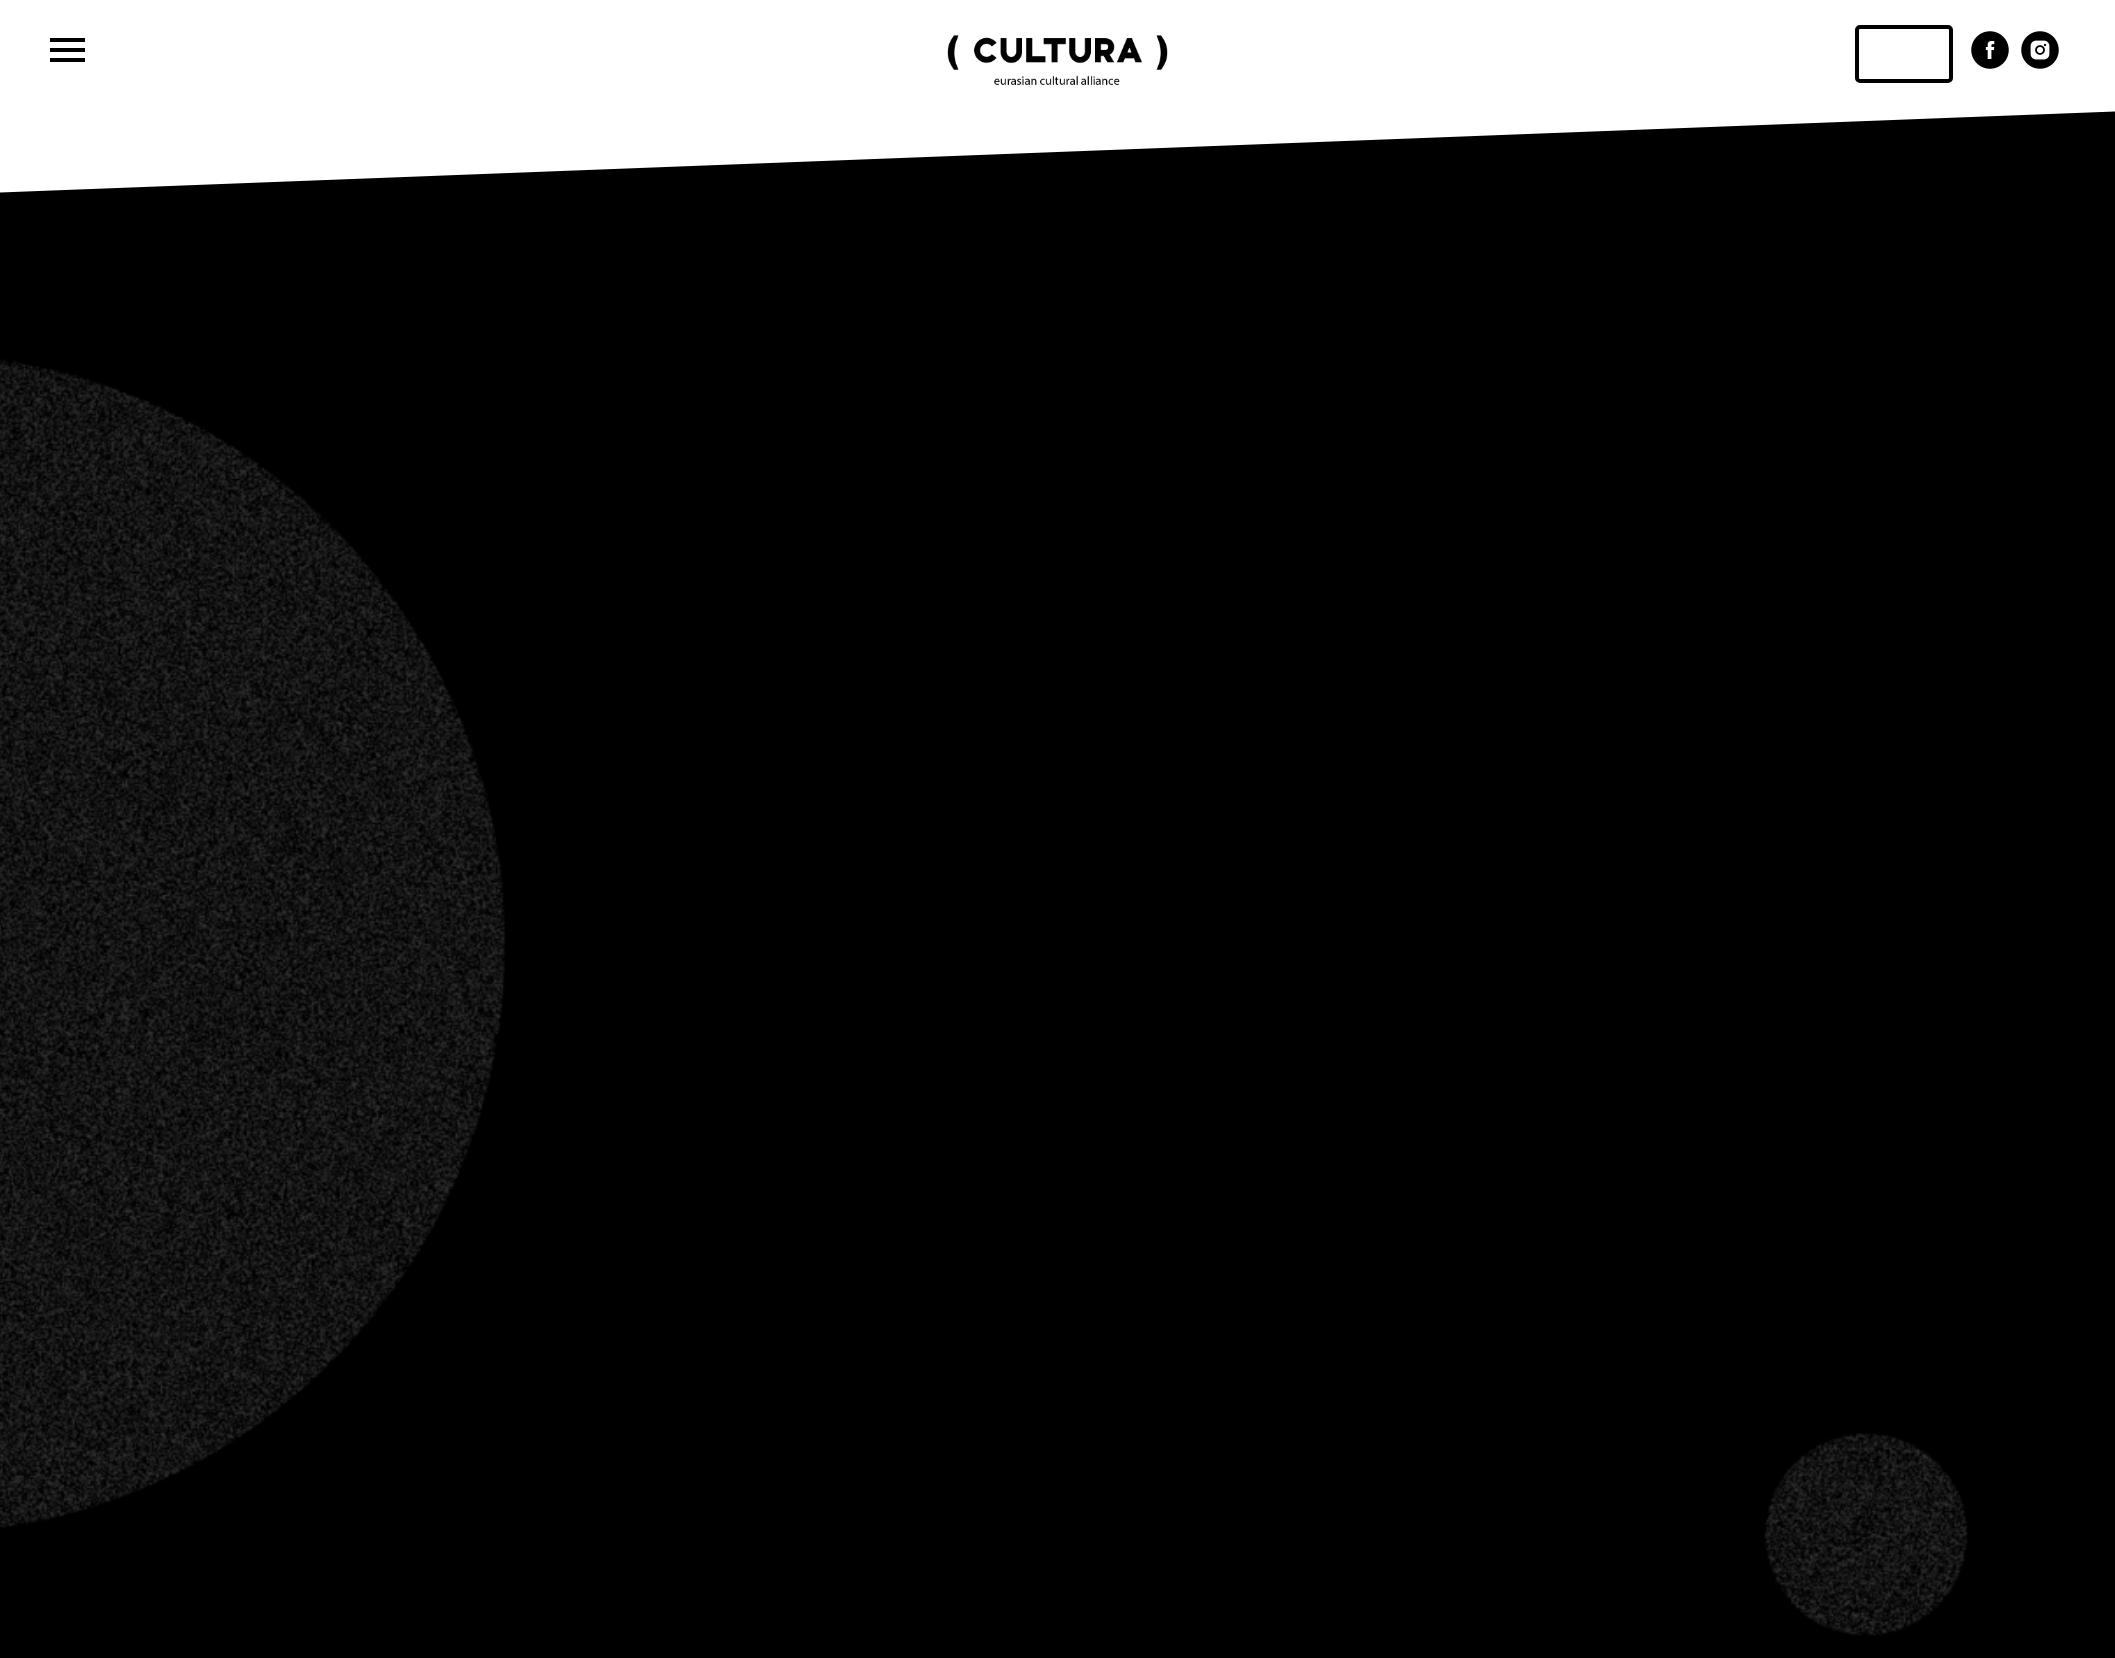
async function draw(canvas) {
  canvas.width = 2115;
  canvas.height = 1658;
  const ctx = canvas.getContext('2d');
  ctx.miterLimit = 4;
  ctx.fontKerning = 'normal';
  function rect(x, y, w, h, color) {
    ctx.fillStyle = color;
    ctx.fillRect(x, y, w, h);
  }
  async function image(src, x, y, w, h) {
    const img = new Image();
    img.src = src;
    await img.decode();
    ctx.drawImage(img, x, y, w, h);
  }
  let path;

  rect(0, 0, 2115, 1658, '#fff');
  ctx.beginPath();
  ctx.roundRect(1857, 27, 94, 54, 3);
  ctx.strokeStyle = '#000';
  ctx.lineWidth = 4;
  ctx.stroke();
  rect(50, 38, 35, 4, '#000');
  rect(50, 48, 35, 4, '#000');
  rect(50, 58, 35, 4, '#000');
  await image('assets/img1.png', 947, 35, 221, 50);
  await image('assets/img2.png', 1971, 31, 38, 38);
  await image('assets/img3.png', 2021, 31, 38, 38);
  rect(0, 111, 2115, 1547, '#000');
  ctx.save();
  ctx.beginPath();
  ctx.rect(0, 110, 2115, 84);
  ctx.clip();
  ctx.fillStyle = '#fff';
  path = new Path2D('M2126 109H-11V193L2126 111Z');
  ctx.fill(path);
  ctx.restore();
  await image('assets/img4.png', 0, 346, 2021, 1312);
}

draw(document.querySelector('canvas'));
